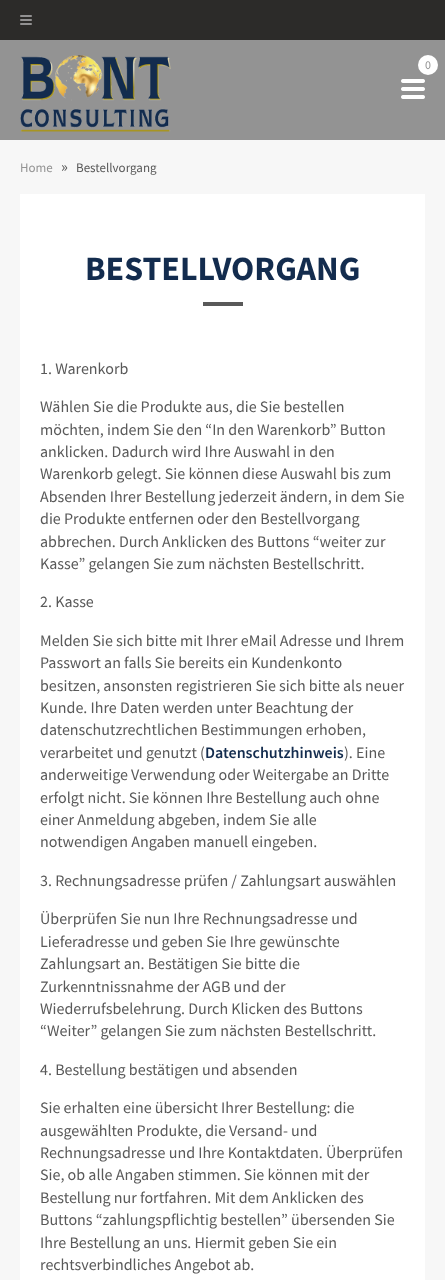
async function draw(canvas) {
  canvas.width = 445;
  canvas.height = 1280;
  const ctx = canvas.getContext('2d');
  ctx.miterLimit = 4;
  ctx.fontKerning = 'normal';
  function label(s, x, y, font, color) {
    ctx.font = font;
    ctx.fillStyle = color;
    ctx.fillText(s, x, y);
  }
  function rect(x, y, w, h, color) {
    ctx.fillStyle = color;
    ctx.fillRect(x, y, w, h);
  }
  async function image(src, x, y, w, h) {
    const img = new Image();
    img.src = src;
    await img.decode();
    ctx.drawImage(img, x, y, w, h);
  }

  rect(0, 0, 445, 1280, '#f7f7f7');
  rect(0, 0, 445, 40, '#2c2b29');
  await image('assets/img1.png', 20, 15, 12, 10);
  rect(0, 40, 445, 100, '#939393');
  await image('assets/img2.png', 20, 55, 151, 77);
  ctx.fillStyle = '#fff';
  ctx.beginPath();
  ctx.arc(428, 65, 10, 0, 2 * Math.PI);
  ctx.fill();
  label('0', 425, 69, '12px Source Sans Pro', '#939393');
  await image('assets/img3.png', 401, 79, 24, 20);
  label('Home', 20, 172, '13px Source Sans Pro', '#939393');
  label('»', 61, 172, '16px Source Sans Pro', '#595959');
  label('Bestellvorgang', 76, 172, '13px Source Sans Pro', '#595959');
  rect(20, 194, 405, 1086, '#fff');
  label('BESTELLVORGANG', 85, 280, 'bold 34px Source Sans Pro', '#132c4e');
  rect(203, 302, 40, 4, '#595959');
  label('1. Warenkorb', 40, 374, '16px Source Sans Pro', '#595959');
  label('Wählen Sie die Produkte aus, die Sie bestellen', 40, 412, '16px Source Sans Pro', '#595959');
  label('möchten, indem Sie den “In den Warenkorb” Button', 40, 435, '16px Source Sans Pro', '#595959');
  label('anklicken. Dadurch wird Ihre Auswahl in den', 40, 457, '16px Source Sans Pro', '#595959');
  label('Warenkorb gelegt. Sie können diese Auswahl bis zum', 40, 479, '16px Source Sans Pro', '#595959');
  label('Absenden Ihrer Bestellung jederzeit ändern, in dem Sie', 40, 502, '16px Source Sans Pro', '#595959');
  label('die Produkte entfernen oder den Bestellvorgang', 40, 524, '16px Source Sans Pro', '#595959');
  label('abbrechen. Durch Anklicken des Buttons “weiter zur', 40, 547, '16px Source Sans Pro', '#595959');
  label('Kasse” gelangen Sie zum nächsten Bestellschritt.', 40, 569, '16px Source Sans Pro', '#595959');
  label('2. Kasse', 40, 607, '16px Source Sans Pro', '#595959');
  label('Melden Sie sich bitte mit Ihrer eMail Adresse und Ihrem', 40, 646, '16px Source Sans Pro', '#595959');
  label('Passwort an falls Sie bereits ein Kundenkonto', 40, 668, '16px Source Sans Pro', '#595959');
  label('besitzen, ansonsten registrieren Sie sich bitte als neuer', 40, 691, '16px Source Sans Pro', '#595959');
  label('Kunde. Ihre Daten werden unter Beachtung der', 40, 713, '16px Source Sans Pro', '#595959');
  label('datenschutzrechtlichen Bestimmungen erhoben,', 40, 735, '16px Source Sans Pro', '#595959');
  label('verarbeitet und genutzt (', 40, 758, '16px Source Sans Pro', '#595959');
  label('Datenschutzhinweis', 205, 758, '600 16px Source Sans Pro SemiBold', '#132c4e');
  label('). Eine', 344, 758, '16px Source Sans Pro', '#595959');
  label('anderweitige Verwendung oder Weitergabe an Dritte', 40, 780, '16px Source Sans Pro', '#595959');
  label('erfolgt nicht. Sie können Ihre Bestellung auch ohne', 40, 803, '16px Source Sans Pro', '#595959');
  label('einer Anmeldung abgeben, indem Sie alle', 40, 825, '16px Source Sans Pro', '#595959');
  label('notwendigen Angaben manuell eingeben.', 40, 847, '16px Source Sans Pro', '#595959');
  label('3. Rechnungsadresse prüfen / Zahlungsart auswählen', 40, 886, '16px Source Sans Pro', '#595959');
  label('Überprüfen Sie nun Ihre Rechnungsadresse und', 40, 924, '16px Source Sans Pro', '#595959');
  label('Lieferadresse und geben Sie Ihre gewünschte', 40, 947, '16px Source Sans Pro', '#595959');
  label('Zahlungsart an. Bestätigen Sie bitte die', 40, 969, '16px Source Sans Pro', '#595959');
  label('Zurkenntnissnahme der AGB und der', 40, 992, '16px Source Sans Pro', '#595959');
  label('Wiederrufsbelehrung. Durch Klicken des Buttons', 40, 1014, '16px Source Sans Pro', '#595959');
  label('“Weiter” gelangen Sie zum nächsten Bestellschritt.', 40, 1036, '16px Source Sans Pro', '#595959');
  label('4. Bestellung bestätigen und absenden', 40, 1075, '16px Source Sans Pro', '#595959');
  label('Sie erhalten eine übersicht Ihrer Bestellung: die', 40, 1113, '16px Source Sans Pro', '#595959');
  label('ausgewählten Produkte, die Versand- und', 40, 1136, '16px Source Sans Pro', '#595959');
  label('Rechnungsadresse und Ihre Kontaktdaten. Überprüfen', 40, 1158, '16px Source Sans Pro', '#595959');
  label('Sie, ob alle Angaben stimmen. Sie können mit der', 40, 1180, '16px Source Sans Pro', '#595959');
  label('Bestellung nur fortfahren. Mit dem Anklicken des', 40, 1203, '16px Source Sans Pro', '#595959');
  label('Buttons “zahlungspflichtig bestellen” übersenden Sie', 40, 1225, '16px Source Sans Pro', '#595959');
  label('Ihre Bestellung an uns. Hiermit geben Sie ein', 40, 1248, '16px Source Sans Pro', '#595959');
  label('rechtsverbindliches Angebot ab.', 40, 1270, '16px Source Sans Pro', '#595959');
}

draw(document.querySelector('canvas'));
